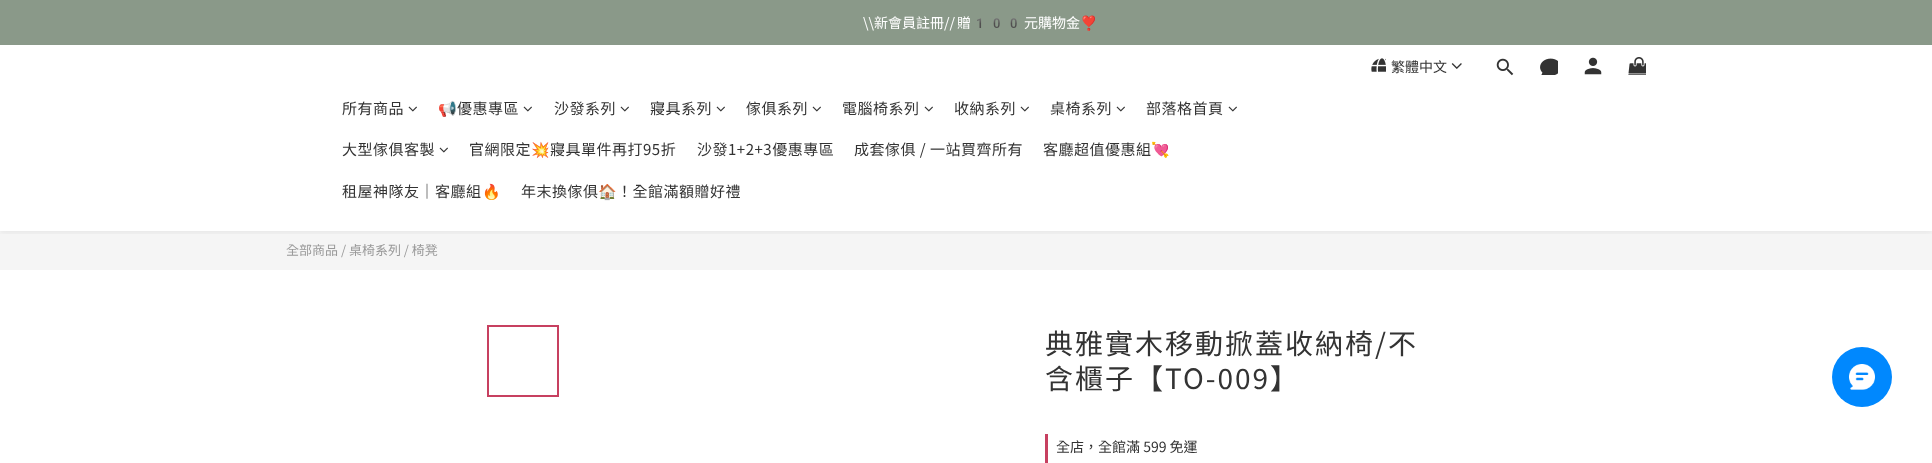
async function draw(canvas) {
  canvas.width = 1932;
  canvas.height = 463;
  const ctx = canvas.getContext('2d');
  ctx.miterLimit = 4;
  ctx.fontKerning = 'normal';
  function label(s, x, y, font, color) {
    ctx.font = font;
    ctx.fillStyle = color;
    ctx.fillText(s, x, y);
  }
  function rect(x, y, w, h, color) {
    ctx.fillStyle = color;
    ctx.fillRect(x, y, w, h);
  }
  async function image(src, x, y, w, h) {
    const img = new Image();
    img.src = src;
    await img.decode();
    ctx.drawImage(img, x, y, w, h);
  }

  rect(0, 0, 1932, 463, '#fff');
  rect(0, 0, 1932, 45, '#8a9989');
  ctx.wordSpacing = '-1px';
  label('\\\\新會員註冊// 贈', 863, 28, '14px Noto Sans TC', '#fff');
  ctx.wordSpacing = '0px';
  label('100', 971, 28, '14px Noto Color Emoji', '#fff');
  label('元購物金', 1024, 28, '14px Noto Sans TC', '#fff');
  label('❣️', 1080, 28, '14px Noto Color Emoji', '#fff');
  rect(0, 231, 1932, 39, '#f5f5f5');
  ctx.save();
  ctx.beginPath();
  ctx.rect(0, 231, 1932, 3);
  ctx.clip();
  ctx.fillStyle = '#0000000f';
  ctx.filter = 'blur(3px)';
  ctx.beginPath();
  ctx.rect(0, 47, 1932, 186);
  ctx.fill();
  ctx.filter = 'none';
  ctx.restore();
  await image('assets/img1.png', 1371, 58, 15, 14);
  label('繁體中文', 1391, 72, '14px Noto Sans TC', '#333');
  await image('assets/img2.png', 1451, 63, 11, 6);
  await image('assets/img3.png', 1496, 58, 18, 18);
  await image('assets/img4.png', 1540, 58, 18, 17);
  await image('assets/img5.png', 1584, 57, 18, 18);
  await image('assets/img6.png', 1628, 57, 18, 18);
  ctx.letterSpacing = '0.5px';
  label('所有商品', 342, 114, '15px Noto Sans TC', '#333');
  await image('assets/img7.png', 408, 106, 9, 6);
  label('📢', 438, 114, '15px "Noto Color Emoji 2"', '#333');
  label('優惠專區', 457, 114, '15px Noto Sans TC', '#333');
  await image('assets/img7.png', 523, 106, 9, 6);
  label('沙發系列', 554, 114, '15px Noto Sans TC', '#333');
  await image('assets/img7.png', 620, 106, 9, 6);
  label('寢具系列', 650, 114, '15px Noto Sans TC', '#333');
  await image('assets/img7.png', 716, 106, 9, 6);
  label('傢俱系列', 746, 114, '15px Noto Sans TC', '#333');
  await image('assets/img7.png', 812, 106, 9, 6);
  label('電腦椅系列', 842, 114, '15px Noto Sans TC', '#333');
  await image('assets/img7.png', 924, 106, 9, 6);
  label('收納系列', 954, 114, '15px Noto Sans TC', '#333');
  await image('assets/img7.png', 1020, 106, 9, 6);
  label('桌椅系列', 1050, 114, '15px Noto Sans TC', '#333');
  await image('assets/img7.png', 1116, 106, 9, 6);
  label('部落格首頁', 1146, 114, '15px Noto Sans TC', '#333');
  await image('assets/img7.png', 1228, 106, 9, 6);
  label('大型傢俱客製', 342, 155, '15px Noto Sans TC', '#333');
  await image('assets/img7.png', 439, 147, 9, 6);
  label('官網限定', 469, 155, '15px Noto Sans TC', '#333');
  label('💥', 531, 155, '15px "Noto Color Emoji 2"', '#333');
  label('寢具單件再打95折', 550, 155, '15px Noto Sans TC', '#333');
  label('沙發1+2+3優惠專區', 697, 155, '15px Noto Sans TC', '#333');
  label('成套傢俱 / 一站買齊所有', 854, 155, '15px Noto Sans TC', '#333');
  label('客廳超值優惠組', 1043, 155, '15px Noto Sans TC', '#333');
  label('💘', 1151, 155, '15px "Noto Color Emoji 2"', '#333');
  label('租屋神隊友｜客廳組', 342, 197, '15px Noto Sans TC', '#333');
  label('🔥', 482, 197, '15px "Noto Color Emoji 2"', '#333');
  label('年末換傢俱', 521, 197, '15px Noto Sans TC', '#333');
  label('🏠', 598, 197, '15px "Noto Color Emoji 2"', '#333');
  label('！全館滿額贈好禮', 617, 197, '15px Noto Sans TC', '#333');
  ctx.letterSpacing = '0px';
  label('全部商品 / 桌椅系列 / 椅凳', 286, 255, '13px Noto Sans TC', '#999');
  ctx.strokeStyle = '#c74060';
  ctx.lineWidth = 2;
  ctx.strokeRect(488, 326, 70, 70);
  ctx.letterSpacing = '2px';
  label('典雅實木移動掀蓋收納椅/不', 1045, 354, '28px Noto Sans TC', '#333');
  label('含櫃子【TO-009】', 1045, 389, '28px Noto Sans TC', '#333');
  rect(1045, 434, 3, 29, '#c74060');
  ctx.letterSpacing = '0px';
  label('全店，全館滿 599 免運', 1056, 452, '14px Noto Sans TC', '#333');
  ctx.fillStyle = '#0088fe';
  ctx.beginPath();
  ctx.arc(1862, 377, 30, 0, 2 * Math.PI);
  ctx.fill();
  await image('assets/img8.png', 1849, 364, 26, 26);
}

draw(document.querySelector('canvas'));
